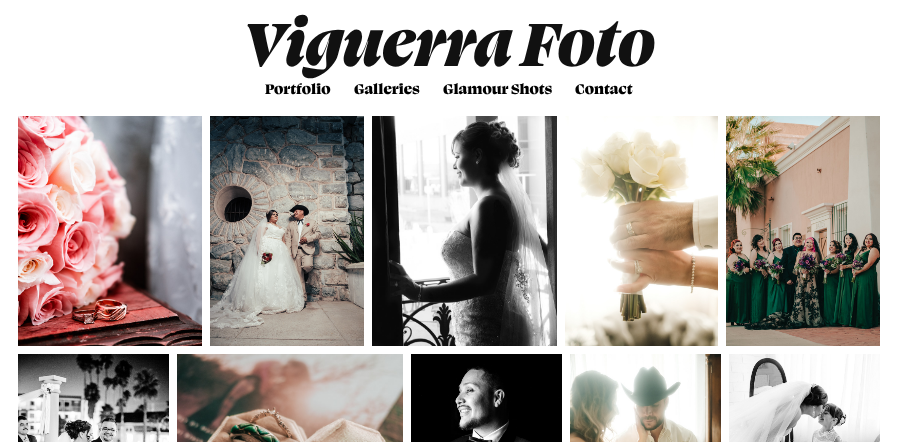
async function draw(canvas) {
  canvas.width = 898;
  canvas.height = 442;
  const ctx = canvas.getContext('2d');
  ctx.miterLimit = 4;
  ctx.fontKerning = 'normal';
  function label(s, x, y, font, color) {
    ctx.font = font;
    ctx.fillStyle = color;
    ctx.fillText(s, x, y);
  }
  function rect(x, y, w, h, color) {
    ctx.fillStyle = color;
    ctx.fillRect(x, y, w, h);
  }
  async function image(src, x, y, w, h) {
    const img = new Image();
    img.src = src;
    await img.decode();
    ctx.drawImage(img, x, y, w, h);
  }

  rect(0, 0, 898, 442, '#fff');
  label('Viguerra Foto', 243, 66, 'italic 900 70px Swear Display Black', '#111');
  label('Portfolio', 265, 94, '900 16px Swear Display Black', '#000');
  label('Galleries', 354, 94, '900 16px Swear Display Black', '#000');
  label('Glamour Shots', 443, 94, '900 16px Swear Display Black', '#000');
  label('Contact', 575, 94, '900 16px Swear Display Black', '#000');
  await image('assets/img1.png', 18, 116, 184, 230);
  await image('assets/img2.png', 210, 116, 154, 230);
  await image('assets/img3.png', 372, 116, 185, 230);
  await image('assets/img4.png', 565, 116, 153, 230);
  await image('assets/img5.png', 726, 116, 154, 230);
  await image('assets/img6.png', 18, 354, 151, 88);
  await image('assets/img7.png', 177, 354, 226, 88);
  await image('assets/img8.png', 411, 354, 151, 88);
  await image('assets/img9.png', 570, 354, 151, 88);
  await image('assets/img10.png', 729, 354, 151, 88);
}

draw(document.querySelector('canvas'));
